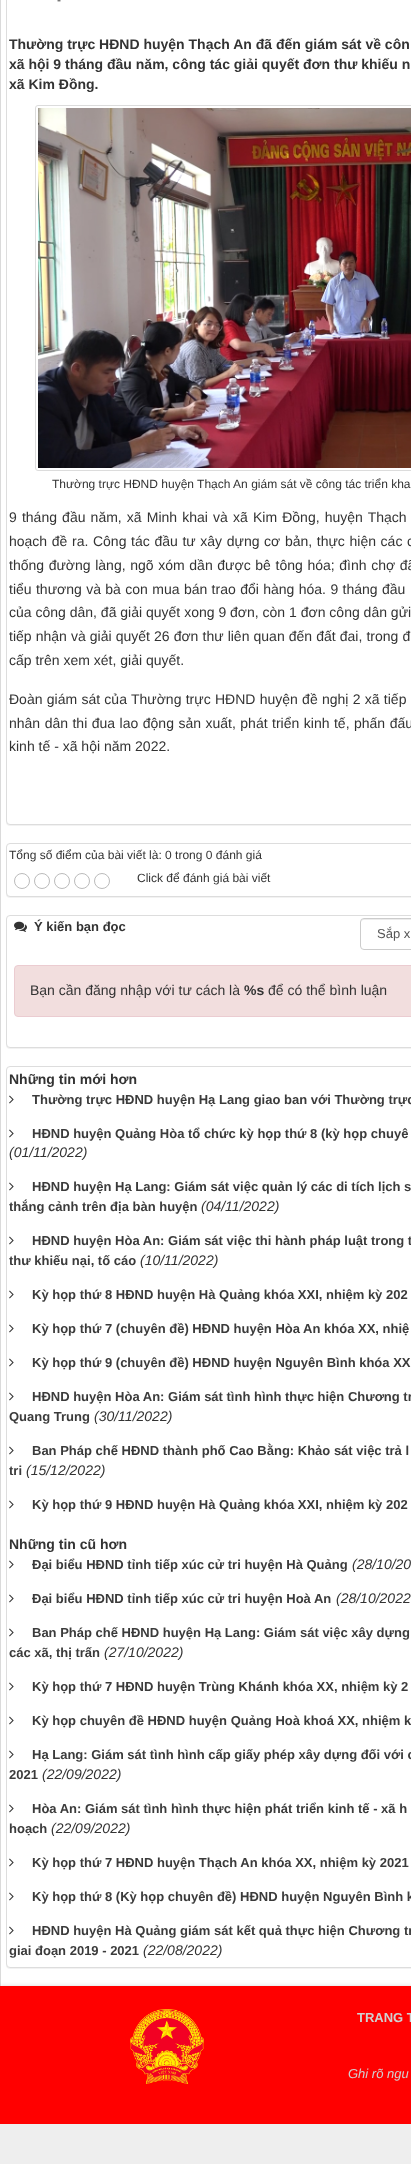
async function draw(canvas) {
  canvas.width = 411;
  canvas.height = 2164;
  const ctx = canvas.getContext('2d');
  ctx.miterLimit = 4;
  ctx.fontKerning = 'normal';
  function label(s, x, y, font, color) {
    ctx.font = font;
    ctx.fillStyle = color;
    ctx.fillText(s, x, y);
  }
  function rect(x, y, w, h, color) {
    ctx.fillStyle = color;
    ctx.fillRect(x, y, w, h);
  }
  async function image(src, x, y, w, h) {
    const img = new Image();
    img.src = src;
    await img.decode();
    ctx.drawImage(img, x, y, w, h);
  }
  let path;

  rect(0, 0, 411, 2164, '#fff');
  rect(0, 0, 1, 1986, '#dadada');
  ctx.fillStyle = '#0000000d';
  ctx.filter = 'blur(0.5px)';
  ctx.beginPath();
  ctx.roundRect(6, -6, 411, 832, 4);
  ctx.fill();
  ctx.filter = 'none';
  ctx.fillStyle = '#fff';
  ctx.beginPath();
  ctx.roundRect(6.5, -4.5, 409, 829, 3.5);
  ctx.fill();
  ctx.strokeStyle = '#ddd';
  ctx.stroke();
  label('-', 57, 4, '12px Liberation Sans', '#333');
  label('Thường trực HĐND huyện Thạch An đã đến giám sát về côn', 9, 49, 'bold 14px Liberation Sans', '#333');
  label('xã hội 9 tháng đầu năm, công tác giải quyết đơn thư khiếu n', 9, 69, 'bold 14px Liberation Sans', '#333');
  label('xã Kim Đồng.', 9, 89, 'bold 14px Liberation Sans', '#333');
  ctx.beginPath();
  ctx.roundRect(35.5, 105.5, 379, 365, 2.5);
  ctx.strokeStyle = '#dcdcdc';
  ctx.stroke();
  await image('assets/img1.png', 38, 108, 373, 360);
  label('Thường trực HĐND huyện Thạch An giám sát về công tác triển kha', 52, 488, '12px Liberation Sans', '#333');
  ctx.wordSpacing = '1.25px';
  label('9 tháng đầu năm, xã Minh khai và xã Kim Đồng, huyện Thạch', 9, 522, '14px Liberation Sans', '#333');
  ctx.wordSpacing = '0.75px';
  label('hoạch đề ra. Công tác đầu tư xây dựng cơ bản, thực hiện các c', 9, 546, '14px Liberation Sans', '#333');
  label('thống đường làng, ngõ xóm dần được bê tông hóa; đình chợ đã', 9, 570, '14px Liberation Sans', '#333');
  ctx.wordSpacing = '0.5px';
  label('tiểu thương và bà con mua bán trao đổi hàng hóa. 9 tháng đầu', 9, 594, '14px Liberation Sans', '#333');
  ctx.wordSpacing = '0px';
  label('của công dân, đã giải quyết xong 9 đơn, còn 1 đơn công dân gửi', 9, 617, '14px Liberation Sans', '#333');
  ctx.wordSpacing = '0.2px';
  label('tiếp nhận và giải quyết 26 đơn thư liên quan đến đất đai, trong đ', 9, 641, '14px Liberation Sans', '#333');
  ctx.wordSpacing = '0px';
  label('cấp trên xem xét, giải quyết.', 9, 665, '14px Liberation Sans', '#333');
  ctx.wordSpacing = '0.4px';
  label('Đoàn giám sát của Thường trực HĐND huyện đề nghị 2 xã tiếp', 9, 704, '14px Liberation Sans', '#333');
  ctx.wordSpacing = '0.6px';
  label('nhân dân thi đua lao động sản xuất, phát triển kinh tế, phấn đấu', 9, 728, '14px Liberation Sans', '#333');
  ctx.wordSpacing = '0px';
  label('kinh tế - xã hội năm 2022.', 9, 751, '14px Liberation Sans', '#333');
  ctx.fillStyle = '#0000000d';
  ctx.filter = 'blur(0.5px)';
  ctx.beginPath();
  ctx.roundRect(6, 844, 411, 54, 4);
  ctx.fill();
  ctx.filter = 'none';
  ctx.fillStyle = '#fff';
  ctx.beginPath();
  ctx.roundRect(6.5, 843.5, 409, 53, 3.5);
  ctx.fill();
  ctx.strokeStyle = '#ddd';
  ctx.stroke();
  label('Tổng số điểm của bài viết là: 0 trong 0 đánh giá', 9, 859, '12px Liberation Sans', '#333');
  ctx.beginPath();
  ctx.arc(22, 881, 7.5, 0, 2 * Math.PI);
  ctx.strokeStyle = '#bbb';
  ctx.stroke();
  ctx.beginPath();
  ctx.arc(42, 881, 7.5, 0, 2 * Math.PI);
  ctx.stroke();
  ctx.beginPath();
  ctx.arc(62, 881, 7.5, 0, 2 * Math.PI);
  ctx.stroke();
  ctx.beginPath();
  ctx.arc(82, 881, 7.5, 0, 2 * Math.PI);
  ctx.stroke();
  ctx.beginPath();
  ctx.arc(102, 881, 7.5, 0, 2 * Math.PI);
  ctx.stroke();
  label('Click để đánh giá bài viết', 137, 882, '12px Liberation Sans', '#333');
  ctx.fillStyle = '#0000000d';
  ctx.filter = 'blur(0.5px)';
  ctx.beginPath();
  ctx.roundRect(6, 916, 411, 133, 4);
  ctx.fill();
  ctx.filter = 'none';
  ctx.fillStyle = '#fff';
  ctx.beginPath();
  ctx.roundRect(6.5, 915.5, 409, 132, 3.5);
  ctx.fill();
  ctx.strokeStyle = '#ddd';
  ctx.stroke();
  await image('assets/img2.png', 14, 921, 13, 11);
  label('Ý kiến bạn đọc', 34, 931, 'bold 13px Liberation Sans', '#333');
  ctx.fillStyle = '#ececec';
  path = new Path2D('M364 920H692C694 920 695 921 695 923C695 921 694 919 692 919H364C362 919 361 921 361 923C361 921 362 920 364 920Z');
  ctx.fill(path);
  ctx.beginPath();
  ctx.roundRect(360.5, 918.5, 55, 31, 3.5);
  ctx.strokeStyle = '#ccc';
  ctx.stroke();
  label('Sắp x', 377, 938, '13px Liberation Sans', '#555');
  ctx.fillStyle = '#f2dede';
  ctx.beginPath();
  ctx.roundRect(14.5, 965.5, 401, 51, 3.5);
  ctx.fill();
  ctx.strokeStyle = '#ebccd1';
  ctx.stroke();
  label('Bạn cần đăng nhập với tư cách là', 30, 995, '14px Liberation Sans', '#333');
  label('%s', 244, 995, 'bold 14px Liberation Sans', '#333');
  label('để có thể bình luận', 268, 995, '14px Liberation Sans', '#333');
  ctx.fillStyle = '#0000000d';
  ctx.filter = 'blur(0.5px)';
  ctx.beginPath();
  ctx.roundRect(6, 1067, 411, 902, 4);
  ctx.fill();
  ctx.filter = 'none';
  ctx.fillStyle = '#fff';
  ctx.beginPath();
  ctx.roundRect(6.5, 1066.5, 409, 901, 3.5);
  ctx.fill();
  ctx.strokeStyle = '#ddd';
  ctx.stroke();
  label('Những tin mới hơn', 9, 1084, 'bold 14px Liberation Sans', '#333');
  await image('assets/img3.png', 9, 1095, 5, 9);
  label('Thường trực HĐND huyện Hạ Lang giao ban với Thường trực', 32, 1104, 'bold 13px Liberation Sans', '#3b3b3b');
  await image('assets/img3.png', 9, 1129, 5, 9);
  label('HĐND huyện Quảng Hòa tổ chức kỳ họp thứ 8 (kỳ họp chuyê', 32, 1138, 'bold 13px Liberation Sans', '#3b3b3b');
  label('(01/11/2022)', 9, 1157, 'italic 14px Liberation Sans', '#333');
  await image('assets/img3.png', 9, 1182, 5, 9);
  label('HĐND huyện Hạ Lang: Giám sát việc quản lý các di tích lịch s', 32, 1191, 'bold 13px Liberation Sans', '#3b3b3b');
  label('thắng cảnh trên địa bàn huyện', 9, 1211, 'bold 13px Liberation Sans', '#3b3b3b');
  label('(04/11/2022)', 201, 1211, 'italic 14px Liberation Sans', '#333');
  await image('assets/img3.png', 9, 1236, 5, 9);
  label('HĐND huyện Hòa An: Giám sát việc thi hành pháp luật trong t', 32, 1245, 'bold 13px Liberation Sans', '#3b3b3b');
  label('thư khiếu nại, tố cáo', 9, 1265, 'bold 13px Liberation Sans', '#3b3b3b');
  label('(10/11/2022)', 140, 1265, 'italic 14px Liberation Sans', '#333');
  await image('assets/img3.png', 9, 1290, 5, 9);
  label('Kỳ họp thứ 8 HĐND huyện Hà Quảng khóa XXI, nhiệm kỳ 202', 32, 1299, 'bold 13px Liberation Sans', '#3b3b3b');
  await image('assets/img3.png', 9, 1324, 5, 9);
  label('Kỳ họp thứ 7 (chuyên đề) HĐND huyện Hòa An khóa XX, nhiệ', 32, 1333, 'bold 13px Liberation Sans', '#3b3b3b');
  await image('assets/img3.png', 9, 1358, 5, 9);
  label('Kỳ họp thứ 9 (chuyên đề) HĐND huyện Nguyên Bình khóa XX', 32, 1367, 'bold 13px Liberation Sans', '#3b3b3b');
  await image('assets/img3.png', 9, 1392, 5, 9);
  label('HĐND huyện Hòa An: Giám sát tình hình thực hiện Chương tr', 32, 1401, 'bold 13px Liberation Sans', '#3b3b3b');
  label('Quang Trung', 9, 1421, 'bold 13px Liberation Sans', '#3b3b3b');
  label('(30/11/2022)', 94, 1421, 'italic 14px Liberation Sans', '#333');
  await image('assets/img3.png', 9, 1446, 5, 9);
  label('Ban Pháp chế HĐND thành phố Cao Bằng: Khảo sát việc trả l', 32, 1455, 'bold 13px Liberation Sans', '#3b3b3b');
  label('tri', 9, 1475, 'bold 13px Liberation Sans', '#3b3b3b');
  label('(15/12/2022)', 26, 1475, 'italic 14px Liberation Sans', '#333');
  await image('assets/img3.png', 9, 1500, 5, 9);
  label('Kỳ họp thứ 9 HĐND huyện Hà Quảng khóa XXI, nhiệm kỳ 202', 32, 1509, 'bold 13px Liberation Sans', '#3b3b3b');
  label('Những tin cũ hơn', 9, 1549, 'bold 14px Liberation Sans', '#333');
  await image('assets/img3.png', 9, 1560, 5, 9);
  label('Đại biểu HĐND tỉnh tiếp xúc cử tri huyện Hà Quảng', 32, 1569, 'bold 13px Liberation Sans', '#3b3b3b');
  label('(28/10/20', 352, 1569, 'italic 14px Liberation Sans', '#333');
  await image('assets/img3.png', 9, 1594, 5, 9);
  label('Đại biểu HĐND tỉnh tiếp xúc cử tri huyện Hoà An', 32, 1603, 'bold 13px Liberation Sans', '#3b3b3b');
  label('(28/10/2022', 336, 1603, 'italic 14px Liberation Sans', '#333');
  await image('assets/img3.png', 9, 1628, 5, 9);
  label('Ban Pháp chế HĐND huyện Hạ Lang: Giám sát việc xây dựng', 32, 1637, 'bold 13px Liberation Sans', '#3b3b3b');
  label('các xã, thị trấn', 9, 1657, 'bold 13px Liberation Sans', '#3b3b3b');
  label('(27/10/2022)', 104, 1657, 'italic 14px Liberation Sans', '#333');
  await image('assets/img3.png', 9, 1682, 5, 9);
  label('Kỳ họp thứ 7 HĐND huyện Trùng Khánh khóa XX, nhiệm kỳ 2', 32, 1691, 'bold 13px Liberation Sans', '#3b3b3b');
  await image('assets/img3.png', 9, 1716, 5, 9);
  label('Kỳ họp chuyên đề HĐND huyện Quảng Hoà khoá XX, nhiệm k', 32, 1725, 'bold 13px Liberation Sans', '#3b3b3b');
  await image('assets/img3.png', 9, 1750, 5, 9);
  label('Hạ Lang: Giám sát tình hình cấp giấy phép xây dựng đối với c', 32, 1759, 'bold 13px Liberation Sans', '#3b3b3b');
  label('2021', 9, 1779, 'bold 13px Liberation Sans', '#3b3b3b');
  label('(22/09/2022)', 42, 1779, 'italic 14px Liberation Sans', '#333');
  await image('assets/img3.png', 9, 1804, 5, 9);
  label('Hòa An: Giám sát tình hình thực hiện phát triển kinh tế - xã h', 32, 1813, 'bold 13px Liberation Sans', '#3b3b3b');
  label('hoạch', 9, 1833, 'bold 13px Liberation Sans', '#3b3b3b');
  label('(22/09/2022)', 51, 1833, 'italic 14px Liberation Sans', '#333');
  await image('assets/img3.png', 9, 1858, 5, 9);
  label('Kỳ họp thứ 7 HĐND huyện Thạch An khóa XX, nhiệm kỳ 2021', 32, 1867, 'bold 13px Liberation Sans', '#3b3b3b');
  await image('assets/img3.png', 9, 1892, 5, 9);
  label('Kỳ họp thứ 8 (Kỳ họp chuyên đề) HĐND huyện Nguyên Bình k', 32, 1901, 'bold 13px Liberation Sans', '#3b3b3b');
  await image('assets/img3.png', 9, 1926, 5, 9);
  label('HĐND huyện Hà Quảng giám sát kết quả thực hiện Chương tr', 32, 1935, 'bold 13px Liberation Sans', '#3b3b3b');
  label('giai đoạn 2019 - 2021', 9, 1955, 'bold 13px Liberation Sans', '#3b3b3b');
  label('(22/08/2022)', 143, 1955, 'italic 14px Liberation Sans', '#333');
  ctx.fillStyle = '#00000026';
  ctx.filter = 'blur(2px)';
  ctx.beginPath();
  ctx.rect(0, 1986, 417, 138);
  ctx.fill();
  ctx.filter = 'none';
  rect(0, 1986, 411, 138, '#f00');
  await image('assets/img4.png', 130, 2009, 74, 75);
  label('TRANG T', 357, 2022, 'bold 13px Liberation Sans', '#d0d0d0');
  label('Ghi rõ ngu', 348, 2078, 'italic 13px Liberation Sans', '#d0d0d0');
  rect(0, 2124, 411, 40, '#eee');
}

draw(document.querySelector('canvas'));
